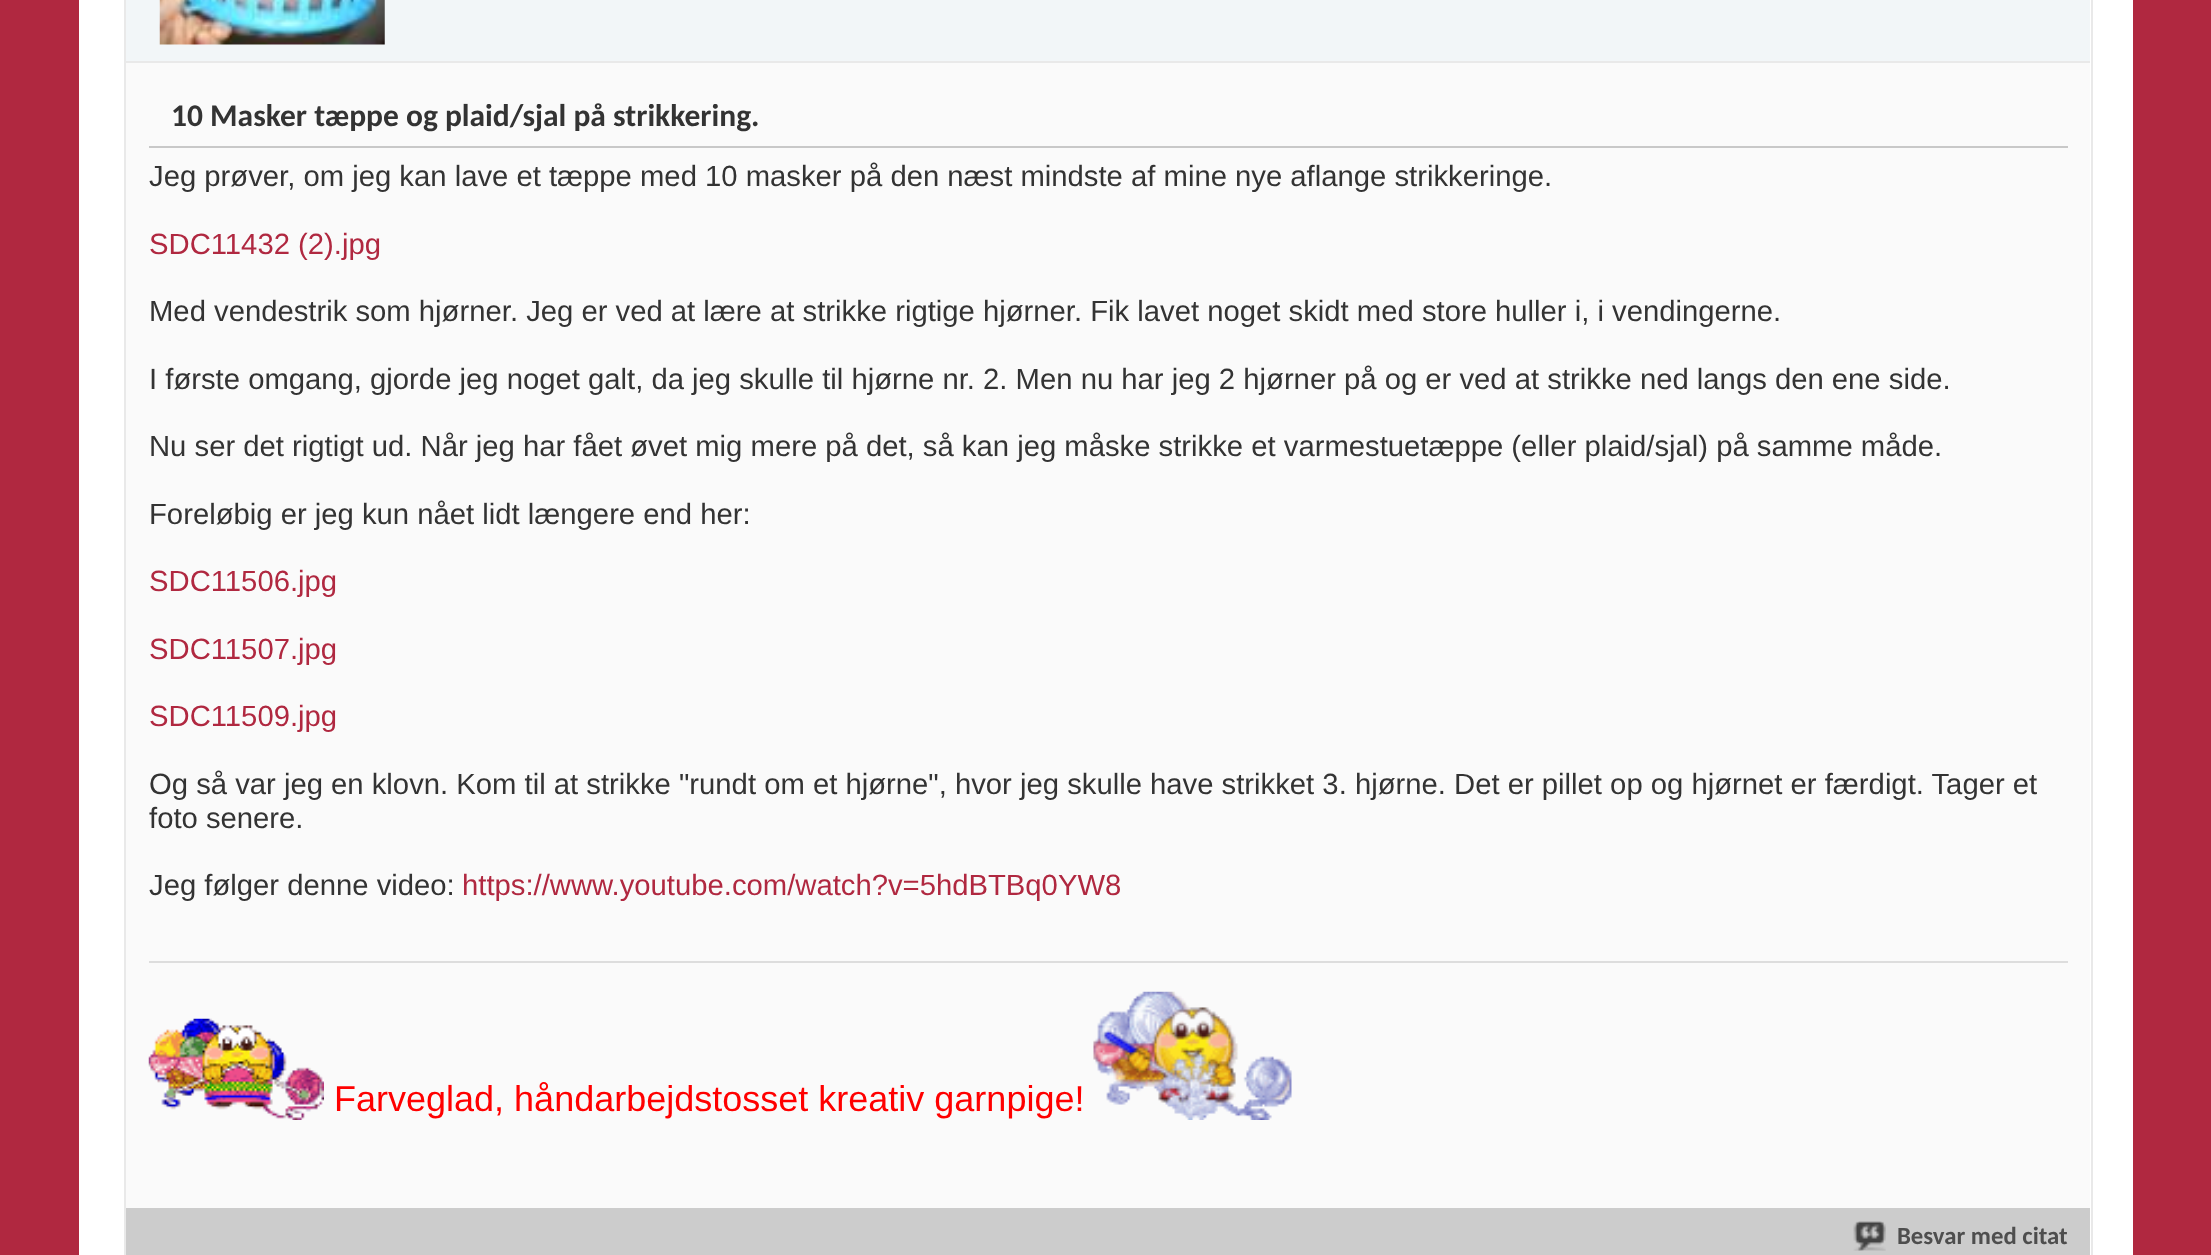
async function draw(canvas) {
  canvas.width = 2211;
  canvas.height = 1255;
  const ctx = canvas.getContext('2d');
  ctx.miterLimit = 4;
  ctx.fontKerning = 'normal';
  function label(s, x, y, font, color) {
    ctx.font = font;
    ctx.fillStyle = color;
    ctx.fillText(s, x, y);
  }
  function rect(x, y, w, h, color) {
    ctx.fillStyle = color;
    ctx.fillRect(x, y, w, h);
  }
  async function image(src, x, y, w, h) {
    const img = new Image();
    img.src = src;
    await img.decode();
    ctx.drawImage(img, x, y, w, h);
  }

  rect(0, 0, 2211, 1255, '#b02840');
  rect(79, 0, 2054, 1255, '#fff');
  ctx.strokeStyle = '#e9e9e9';
  ctx.lineWidth = 2;
  ctx.strokeRect(125, -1, 1967, 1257);
  rect(126, 0, 1964, 61, '#f2f6f8');
  rect(126, 61, 1964, 2, '#e9e9e9');
  await image('assets/img1.png', 159, 0, 226, 45);
  rect(126, 63, 1964, 1145, '#fafafa');
  rect(149, 146, 1919, 2, '#c8c8c8');
  label('10 Masker tæppe og plaid/sjal på strikkering.', 171, 126, 'bold 31.5px Carlito', '#333');
  label('Jeg prøver, om jeg kan lave et tæppe med 10 masker på den næst mindste af mine nye aflange strikkeringe.', 149, 186, '29.25px Liberation Sans', '#333');
  label('SDC11432 (2).jpg', 149, 254, '29.25px Liberation Sans', '#b02840');
  label('Med vendestrik som hjørner. Jeg er ved at lære at strikke rigtige hjørner. Fik lavet noget skidt med store huller i, i vendingerne.', 149, 321, '29.25px Liberation Sans', '#333');
  label('I første omgang, gjorde jeg noget galt, da jeg skulle til hjørne nr. 2. Men nu har jeg 2 hjørner på og er ved at strikke ned langs den ene side.', 149, 389, '29.25px Liberation Sans', '#333');
  label('Nu ser det rigtigt ud. Når jeg har fået øvet mig mere på det, så kan jeg måske strikke et varmestuetæppe (eller plaid/sjal) på samme måde.', 149, 456, '29.25px Liberation Sans', '#333');
  label('Foreløbig er jeg kun nået lidt længere end her:', 149, 524, '29.25px Liberation Sans', '#333');
  label('SDC11506.jpg', 149, 591, '29.25px Liberation Sans', '#b02840');
  label('SDC11507.jpg', 149, 659, '29.25px Liberation Sans', '#b02840');
  label('SDC11509.jpg', 149, 726, '29.25px Liberation Sans', '#b02840');
  label('Og så var jeg en klovn. Kom til at strikke "rundt om et hjørne", hvor jeg skulle have strikket 3. hjørne. Det er pillet op og hjørnet er færdigt. Tager et', 149, 794, '29.25px Liberation Sans', '#333');
  label('foto senere.', 149, 828, '29.25px Liberation Sans', '#333');
  label('Jeg følger denne video:', 149, 895, '29.25px Liberation Sans', '#333');
  label('https://www.youtube.com/watch?v=5hdBTBq0YW8', 462, 895, '29.25px Liberation Sans', '#b02840');
  rect(149, 961, 1919, 2, '#ddd');
  await image('assets/img2.png', 148, 1018, 176, 102);
  label('Farveglad, håndarbejdstosset kreativ garnpige!', 334, 1111, '36px Liberation Sans', '#f00');
  await image('assets/img3.png', 1093, 991, 199, 129);
  rect(126, 1208, 1964, 47, '#ccc');
  await image('assets/img4.png', 1853, 1221, 33, 30);
  label('Besvar med citat', 1897, 1244, 'bold 24.75px Carlito', '#4e4e4e');
}

draw(document.querySelector('canvas'));
